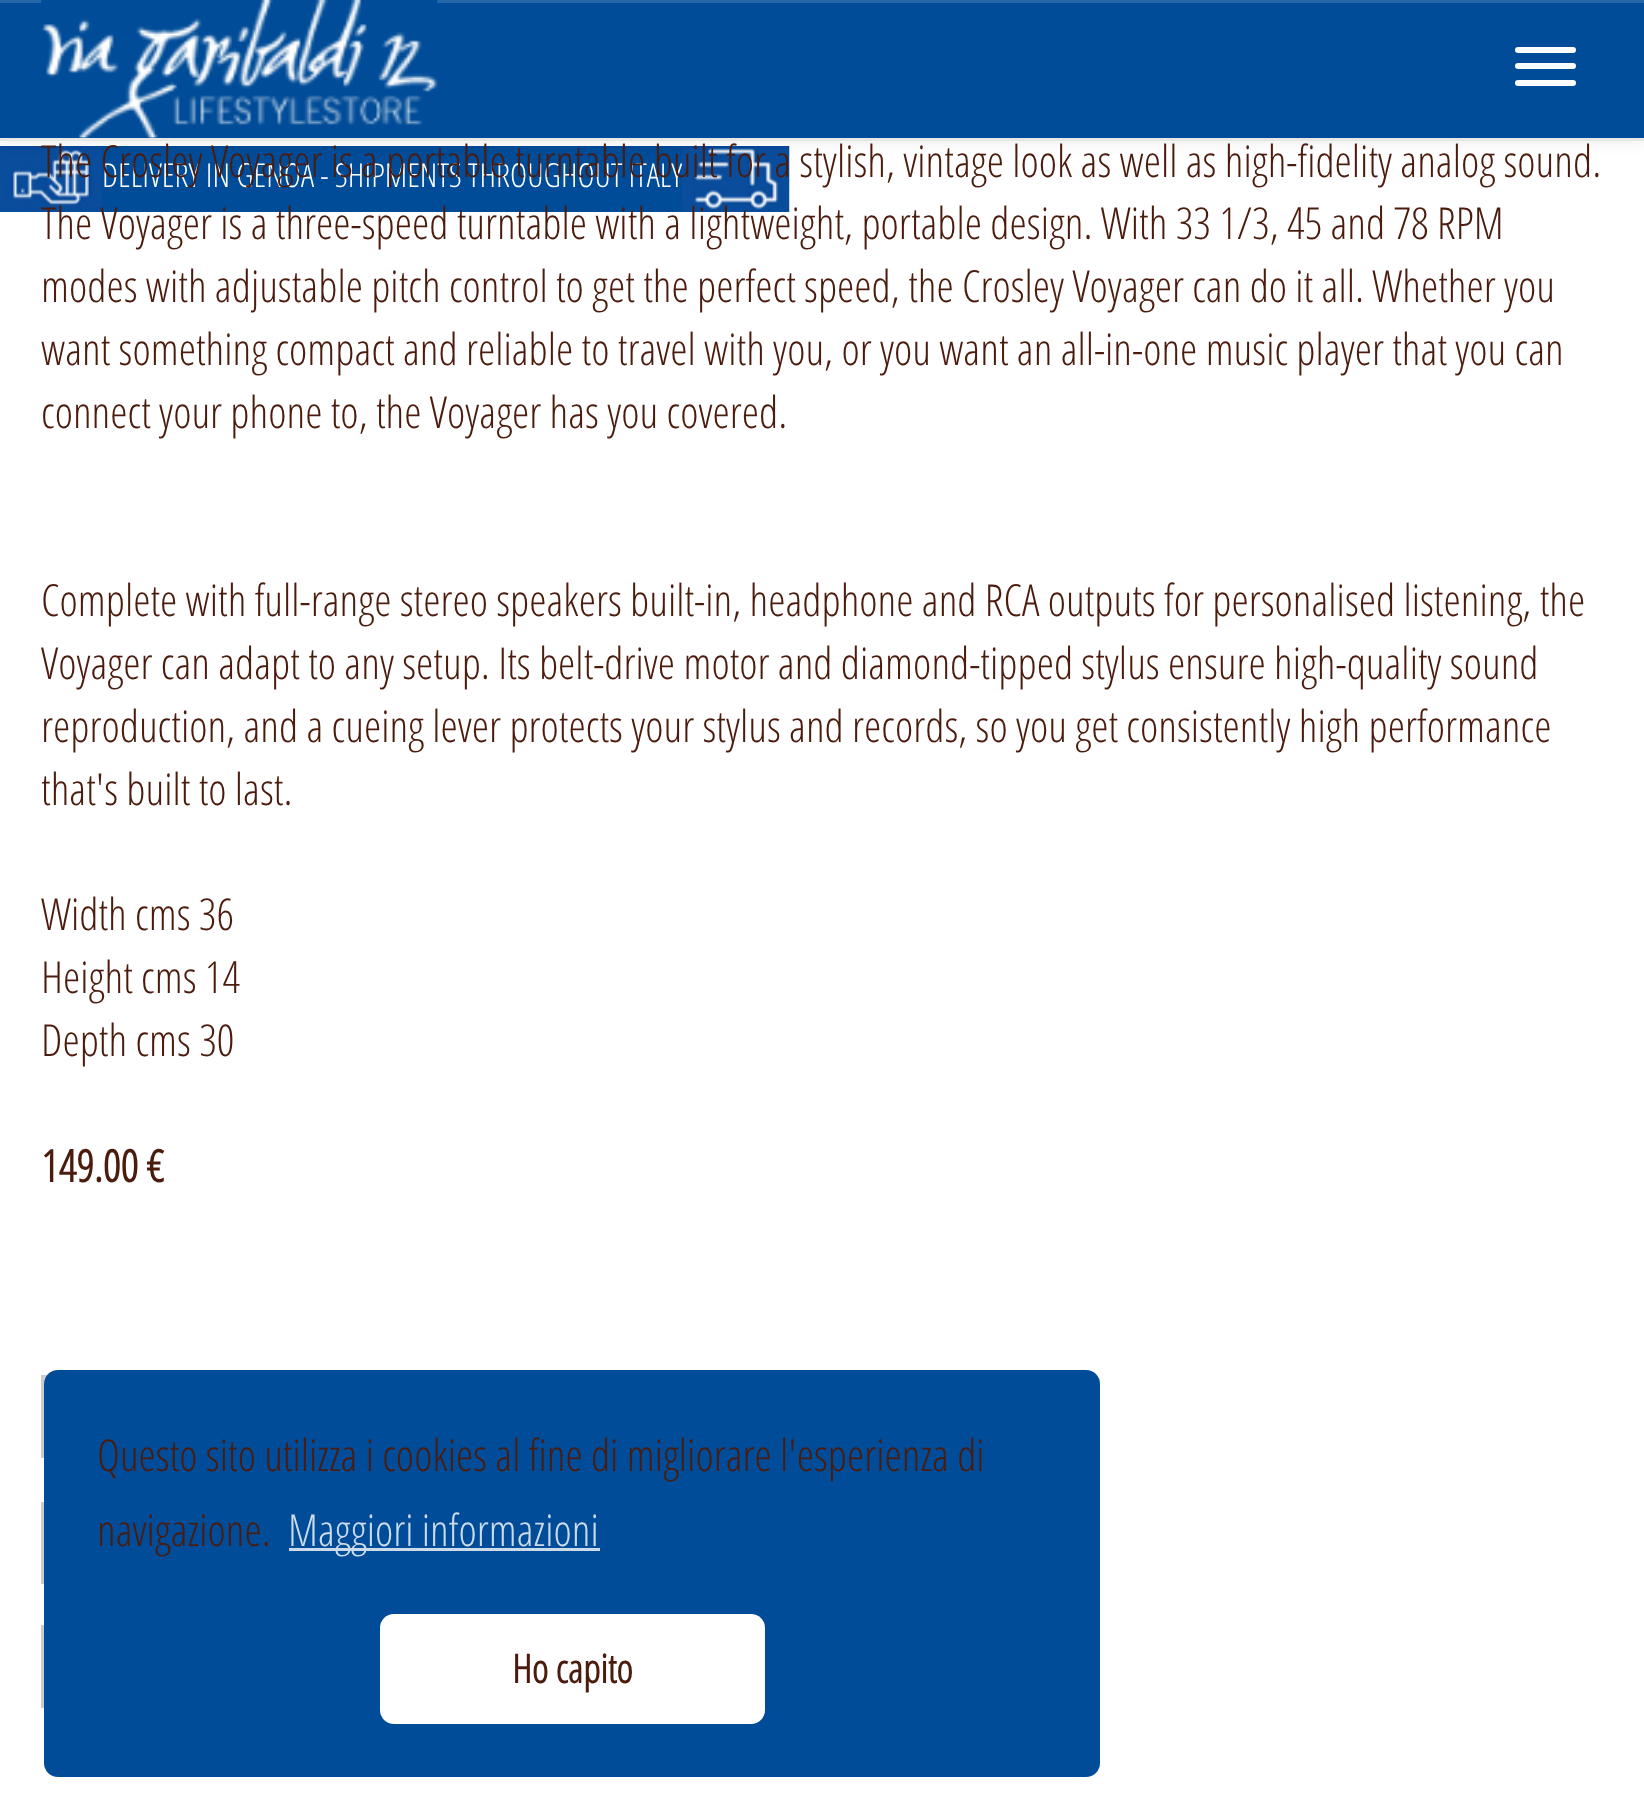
async function draw(canvas) {
  canvas.width = 1644;
  canvas.height = 1819;
  const ctx = canvas.getContext('2d');
  ctx.miterLimit = 4;
  ctx.fontKerning = 'normal';
  function label(s, x, y, font, color) {
    ctx.font = font;
    ctx.fillStyle = color;
    ctx.fillText(s, x, y);
  }
  function rect(x, y, w, h, color) {
    ctx.fillStyle = color;
    ctx.fillRect(x, y, w, h);
  }
  function roundedRect(x, y, w, h, r, color) {
    ctx.fillStyle = color;
    ctx.beginPath();
    ctx.roundRect(x, y, w, h, r);
    ctx.fill();
  }
  async function image(src, x, y, w, h) {
    const img = new Image();
    img.src = src;
    await img.decode();
    ctx.drawImage(img, x, y, w, h);
  }

  rect(0, 0, 1644, 1819, '#fff');
  rect(101, 146, 581, 66, '#004c98');
  await image('assets/img2.png', 0, 146, 102, 66);
  label('DELIVERY IN GENOA - SHIPMENTS THROUGHOUT ITALY', 102, 187, '300 33px Open Sans Condensed', '#fff');
  await image('assets/img3.png', 682, 146, 108, 66);
  ctx.fillStyle = '#00000012';
  ctx.filter = 'blur(7px)';
  ctx.beginPath();
  ctx.rect(0, 3, 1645, 140);
  ctx.fill();
  ctx.filter = 'none';
  rect(0, 3, 1644, 135, '#004c98');
  rect(0, 0, 1644, 3, '#2667a7');
  rect(0, 138, 1644, 3, '#e7e7e7');
  await image('assets/img1.png', 41, 0, 397, 138);
  roundedRect(1515, 47, 61, 6, 3, '#fff');
  roundedRect(1515, 63, 61, 6, 3, '#fff');
  roundedRect(1515, 80, 61, 6, 3, '#fff');
  label('The Crosley Voyager is a portable turntable built for a stylish, vintage look as well as high-fidelity analog sound.', 41, 177, '300 44px Open Sans Condensed', '#4b1c0d');
  label('The Voyager is a three-speed turntable with a lightweight, portable design. With 33 1/3, 45 and 78 RPM', 41, 239, '300 44px Open Sans Condensed', '#4b1c0d');
  label('modes with adjustable pitch control to get the perfect speed, the Crosley Voyager can do it all. Whether you', 41, 302, '300 44px Open Sans Condensed', '#4b1c0d');
  label('want something compact and reliable to travel with you, or you want an all-in-one music player that you can', 41, 365, '300 44px Open Sans Condensed', '#4b1c0d');
  label('connect your phone to, the Voyager has you covered.', 41, 428, '300 44px Open Sans Condensed', '#4b1c0d');
  label('Complete with full-range stereo speakers built-in, headphone and RCA outputs for personalised listening, the', 41, 616, '300 44px Open Sans Condensed', '#4b1c0d');
  label('Voyager can adapt to any setup. Its belt-drive motor and diamond-tipped stylus ensure high-quality sound', 41, 679, '300 44px Open Sans Condensed', '#4b1c0d');
  label('reproduction, and a cueing lever protects your stylus and records, so you get consistently high performance', 41, 742, '300 44px Open Sans Condensed', '#4b1c0d');
  label('that\'s built to last.', 41, 805, '300 44px Open Sans Condensed', '#4b1c0d');
  label('Width cms 36', 41, 930, '300 44px Open Sans Condensed', '#4b1c0d');
  label('Height cms 14', 41, 993, '300 44px Open Sans Condensed', '#4b1c0d');
  label('Depth cms 30', 41, 1056, '300 44px Open Sans Condensed', '#4b1c0d');
  label('149.00 €', 41, 1182, 'bold 44px Open Sans Condensed', '#4b1c0d');
  ctx.strokeStyle = '#ccc';
  ctx.lineWidth = 3;
  ctx.strokeRect(42.5, 1376.5, 283, 80);
  ctx.strokeRect(42.5, 1503.5, 256, 79);
  rect(41, 1625, 3, 83, '#ccc');
  roundedRect(44, 1370, 1056, 407, 14, '#004c98');
  label('Questo sito utilizza i cookies al fine di migliorare l\'esperienza di', 97, 1471, '300 44px Open Sans Condensed', '#4b1c0d');
  label('navigazione.', 97, 1546, '300 44px Open Sans Condensed', '#4b1c0d');
  rect(289, 1548, 311, 3, '#ccdbea');
  label('Maggiori informazioni', 288, 1546, '300 44px Open Sans Condensed', '#ccdbea');
  roundedRect(380, 1614, 385, 110, 14, '#fff');
  label('Ho capito', 512, 1683, 'bold 39.5px Open Sans Condensed', '#4b1c0d');
}

draw(document.querySelector('canvas'));
